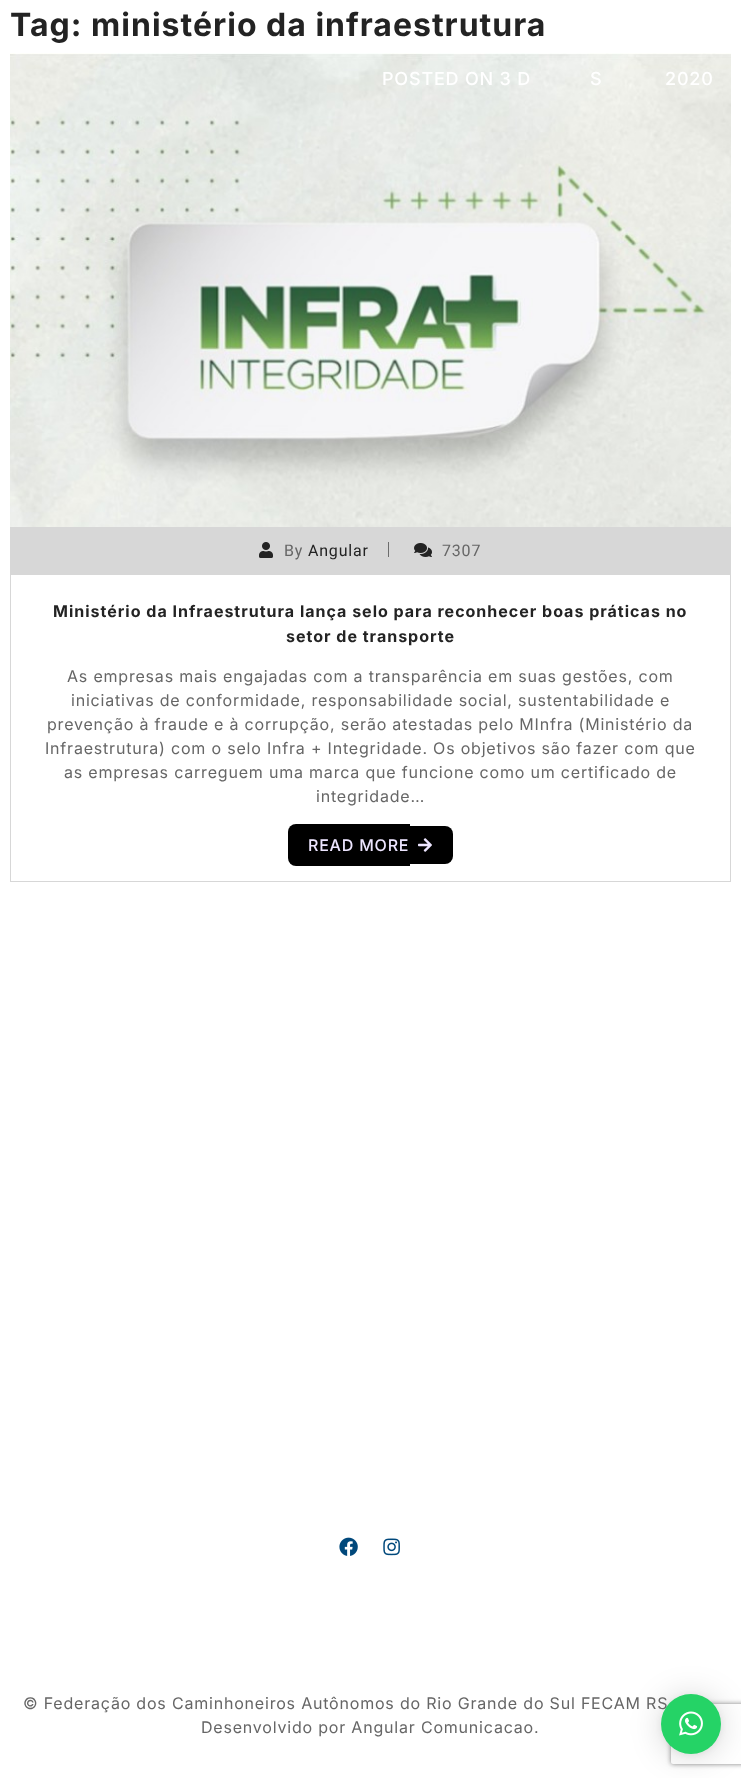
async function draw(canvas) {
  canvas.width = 741;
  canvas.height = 1778;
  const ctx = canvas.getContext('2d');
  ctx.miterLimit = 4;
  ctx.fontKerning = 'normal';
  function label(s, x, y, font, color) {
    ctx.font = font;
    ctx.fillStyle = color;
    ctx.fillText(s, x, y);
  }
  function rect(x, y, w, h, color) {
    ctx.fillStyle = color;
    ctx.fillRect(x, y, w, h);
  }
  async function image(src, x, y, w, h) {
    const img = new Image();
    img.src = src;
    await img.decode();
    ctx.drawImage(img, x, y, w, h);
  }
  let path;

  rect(0, 0, 741, 1778, '#fff');
  ctx.letterSpacing = '1px';
  label('Tag: ministério da infraestrutura', 10, 36, 'bold 32px Inter', '#232323');
  await image('assets/img1.png', 10, 53, 721, 474);
  ctx.letterSpacing = '0.8px';
  label('POSTED ON 3 D', 382, 85, '500 18px Inter', '#fff');
  label('S', 590, 85, '500 18px Inter', '#fff');
  label('2020', 665, 85, '500 18px Inter', '#fff');
  rect(10, 527, 721, 47, '#d7d7d7');
  await image('assets/img2.png', 259, 542, 14, 16);
  label('By', 284, 556, '16px Roboto', '#666');
  label('Angular', 308, 556, '16px Roboto', '#232323');
  rect(388, 542, 1, 15, '#6c6c6c');
  await image('assets/img3.png', 414, 543, 18, 14);
  label('7307', 442, 556, '16px Roboto', '#666');
  ctx.strokeStyle = '#d7d7d7';
  ctx.strokeRect(10.5, 574.5, 720, 307);
  ctx.letterSpacing = '1px';
  label('Ministério da Infraestrutura lança selo para reconhecer boas práticas no', 53, 617, 'bold 16px Inter', '#232323');
  label('setor de transporte', 286, 642, 'bold 16px Inter', '#232323');
  ctx.letterSpacing = '0.8px';
  label('As empresas mais engajadas com a transparência em suas gestões, com', 67, 682, '16px Inter', '#666');
  label('iniciativas de conformidade, responsabilidade social, sustentabilidade e', 71, 706, '16px Inter', '#666');
  label('prevenção à fraude e à corrupção, serão atestadas pelo MInfra (Ministério da', 47, 730, '16px Inter', '#666');
  label('Infraestrutura) com o selo Infra + Integridade. Os objetivos são fazer com que', 45, 754, '16px Inter', '#666');
  label('as empresas carreguem uma marca que funcione como um certificado de', 64, 778, '16px Inter', '#666');
  label('integridade…', 316, 802, '16px Inter', '#666');
  ctx.fillStyle = '#000';
  ctx.beginPath();
  ctx.roundRect(288, 824, 122, 42, [8, 0, 0, 8]);
  ctx.fill();
  ctx.beginPath();
  ctx.roundRect(410, 826, 43, 38, [0, 8, 8, 0]);
  ctx.fill();
  label('READ MORE', 308, 851, '500 16px Inter', '#ede5ff');
  await image('assets/img4.png', 418, 838, 14, 14);
  ctx.fillStyle = '#00000029';
  ctx.filter = 'blur(16px)';
  ctx.beginPath();
  ctx.roundRect(661, 1696, 60, 60, 30);
  ctx.fill();
  ctx.filter = 'none';
  ctx.fillStyle = '#0000000f';
  ctx.filter = 'blur(3px)';
  ctx.beginPath();
  ctx.roundRect(661, 1695, 60, 60, 30);
  ctx.fill();
  ctx.filter = 'none';
  label('© Federação dos Caminhoneiros Autônomos do Rio Grande do Sul FECAM RS', 23, 1709, '16px Inter', '#666');
  ctx.save();
  path = new Path2D('M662 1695H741V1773H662ZM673 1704H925C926 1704 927 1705 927 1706V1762C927 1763 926 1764 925 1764H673C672 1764 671 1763 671 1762V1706C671 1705 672 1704 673 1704Z');
  ctx.clip(path, 'evenodd');
  ctx.fillStyle = '#808080';
  ctx.filter = 'blur(2.5px)';
  ctx.beginPath();
  ctx.roundRect(671, 1704, 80, 60, 2);
  ctx.fill();
  ctx.filter = 'none';
  ctx.restore();
  ctx.fillStyle = '#25d366';
  ctx.beginPath();
  ctx.arc(691, 1724, 30, 0, 2 * Math.PI);
  ctx.fill();
  await image('assets/img5.png', 679, 1711, 24, 25);
  await image('assets/img6.png', 339, 1537, 19, 19);
  await image('assets/img7.png', 383, 1538, 17, 18);
  label('Desenvolvido por Angular Comunicacao.', 201, 1733, '16px Inter', '#666');
}

draw(document.querySelector('canvas'));
